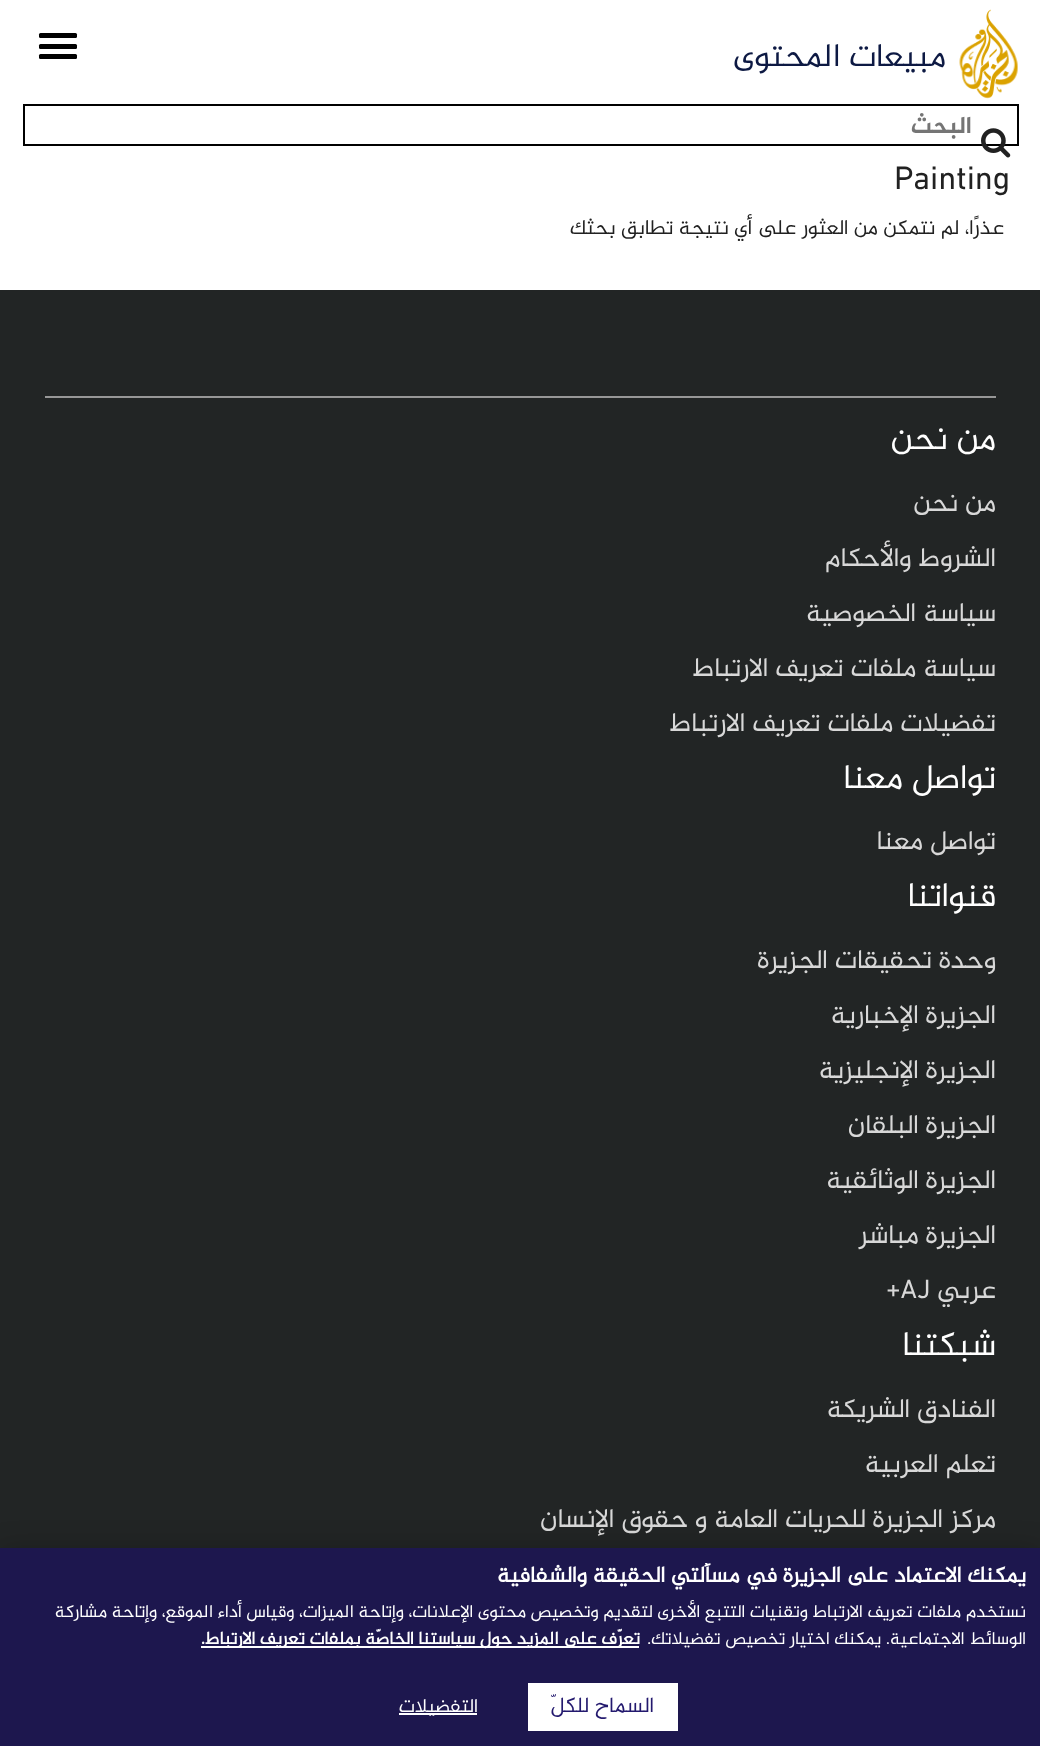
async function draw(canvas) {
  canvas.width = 1040;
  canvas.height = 1746;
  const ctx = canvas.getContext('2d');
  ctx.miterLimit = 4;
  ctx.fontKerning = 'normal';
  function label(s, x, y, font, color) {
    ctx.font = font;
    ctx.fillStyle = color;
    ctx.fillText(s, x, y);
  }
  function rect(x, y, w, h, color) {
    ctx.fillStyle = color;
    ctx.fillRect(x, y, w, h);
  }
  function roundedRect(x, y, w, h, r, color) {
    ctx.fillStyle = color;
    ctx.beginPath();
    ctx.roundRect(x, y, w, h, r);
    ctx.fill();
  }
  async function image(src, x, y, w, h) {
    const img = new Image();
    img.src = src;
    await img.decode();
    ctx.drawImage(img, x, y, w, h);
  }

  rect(0, 0, 1040, 1746, '#fff');
  await image('assets/img1.png', 959, 9, 59, 90);
  ctx.direction = 'rtl';
  label('مبيعات المحتوى', 946, 66, '33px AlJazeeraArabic', '#0d1943');
  roundedRect(39, 33, 38, 5, 1.5, '#000');
  roundedRect(39, 44, 38, 5, 1.5, '#000');
  roundedRect(39, 54, 38, 5, 1.5, '#000');
  ctx.strokeStyle = '#000';
  ctx.lineWidth = 2;
  ctx.strokeRect(24, 105, 994, 40);
  await image('assets/img2.png', 981, 128, 30, 30);
  label('البحث', 972, 133, 'bold 24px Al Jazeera', '#757575');
  ctx.direction = 'ltr';
  label('Painting', 894, 189, '33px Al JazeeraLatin', '#212121');
  ctx.direction = 'rtl';
  label('عذرًا، لم نتمكن من العثور على أي نتيجة تطابق بحثك', 1004, 234, '21px AlJazeeraArabic', '#212121');
  rect(0, 290, 1040, 1258, '#222525');
  rect(45, 396, 951, 2, '#979797');
  label('من نحن', 996, 449, '34.5px AlJazeeraArabic', '#fff');
  label('من نحن', 996, 511, '27px Al Jazeera', '#d8d8d8');
  label('الشروط والأحكام', 996, 566, '27px Al Jazeera', '#d8d8d8');
  label('سياسة الخصوصية', 996, 621, '27px Al Jazeera', '#d8d8d8');
  label('سياسة ملفات تعريف الارتباط', 996, 676, '27px Al Jazeera', '#d8d8d8');
  label('تفضيلات ملفات تعريف الارتباط', 996, 731, '27px Al Jazeera', '#d8d8d8');
  label('تواصل معنا', 996, 788, '34.5px AlJazeeraArabic', '#fff');
  label('تواصل معنا', 996, 849, '27px Al Jazeera', '#d8d8d8');
  label('قنواتنا', 996, 906, '34.5px AlJazeeraArabic', '#fff');
  label('وحدة تحقيقات الجزيرة', 996, 968, '27px Al Jazeera', '#d8d8d8');
  label('الجزيرة الإخبارية', 996, 1023, '27px Al Jazeera', '#d8d8d8');
  label('الجزيرة الإنجليزية', 996, 1078, '27px Al Jazeera', '#d8d8d8');
  label('الجزيرة البلقان', 996, 1133, '27px Al Jazeera', '#d8d8d8');
  label('الجزيرة الوثائقية', 996, 1188, '27px Al Jazeera', '#d8d8d8');
  label('الجزيرة مباشر', 996, 1243, '27px Al Jazeera', '#d8d8d8');
  label('عربي', 996, 1298, '27px Al Jazeera', '#d8d8d8');
  ctx.direction = 'ltr';
  label('+AJ', 886, 1298, '27px Al Jazeera', '#d8d8d8');
  ctx.direction = 'rtl';
  label('شبكتنا', 996, 1355, '34.5px AlJazeeraArabic', '#fff');
  label('الفنادق الشريكة', 996, 1417, '27px Al Jazeera', '#d8d8d8');
  label('تعلم العربية', 996, 1472, '27px Al Jazeera', '#d8d8d8');
  label('مركز الجزيرة للحريات العامة و حقوق الإنسان', 996, 1527, '27px Al Jazeera', '#d8d8d8');
  ctx.fillStyle = '#00000033';
  ctx.filter = 'blur(13.5px)';
  ctx.beginPath();
  ctx.rect(0, 1548, 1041, 198);
  ctx.fill();
  ctx.filter = 'none';
  rect(0, 1548, 1040, 198, '#1d174e');
  ctx.save();
  ctx.beginPath();
  ctx.rect(15, 1563, 1011, 90);
  ctx.clip();
  label('يمكنك الاعتماد على الجزيرة في مسألتي الحقيقة والشفافية', 1026, 1582, 'bold 22.5px AlJazeeraArabic', '#fff');
  ctx.restore();
  label('نستخدم ملفات تعريف الارتباط وتقنيات التتبع الأخرى لتقديم وتخصيص محتوى الإعلانات، وإتاحة الميزات، وقياس أداء الموقع، وإتاحة مشاركة', 1026, 1617, '18px AlJazeeraArabic', '#fff');
  label('الوسائط الاجتماعية. يمكنك اختيار تخصيص تفضيلاتك.', 1026, 1644, '18px AlJazeeraArabic', '#fff');
  rect(201, 1646, 438, 2, '#fff');
  label('تعرّف على المزيد حول سياستنا الخاصّة بملفات تعريف الارتباط.', 640, 1644, 'bold 18px AlJazeeraArabic', '#fff');
  rect(528, 1683, 150, 48, '#fff');
  label('السماح للكلّ', 654, 1712, '22px AlJazeeraArabic', '#23196e');
  rect(399, 1713, 78, 2, '#fff');
  label('التفضيلات', 478, 1712, '19.5px AlJazeeraArabic', '#fff');
}

draw(document.querySelector('canvas'));
